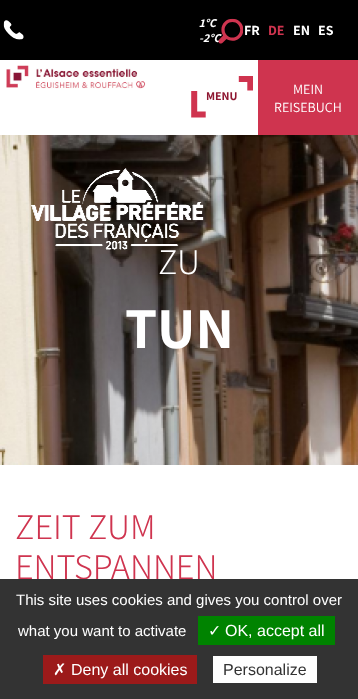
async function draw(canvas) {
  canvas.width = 358;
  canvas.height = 699;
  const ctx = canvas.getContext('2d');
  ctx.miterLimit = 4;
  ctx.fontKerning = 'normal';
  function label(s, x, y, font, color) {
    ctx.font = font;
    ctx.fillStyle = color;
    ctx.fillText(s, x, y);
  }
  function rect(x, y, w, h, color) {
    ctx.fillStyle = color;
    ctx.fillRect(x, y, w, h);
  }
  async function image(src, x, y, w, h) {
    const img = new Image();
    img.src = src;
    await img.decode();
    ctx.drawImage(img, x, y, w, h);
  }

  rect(0, 0, 358, 699, '#fff');
  rect(0, 0, 358, 60, '#000');
  await image('assets/img1.png', 3, 20, 21, 20);
  label('1°C', 199, 27, 'italic bold 12px Assistant', '#fff');
  label('-2°C', 199, 42, 'italic bold 12px Assistant', '#fff');
  label('FR', 244, 35, 'bold 14px Assistant', '#fff');
  label('DE', 268, 35, 'bold 14px Assistant', '#cf344f');
  label('EN', 293, 35, 'bold 14px Assistant', '#fff');
  label('ES', 318, 35, 'bold 14px Assistant', '#fff');
  await image('assets/img2.png', 6, 65, 140, 24);
  await image('assets/img3.png', 218, 18, 25, 26);
  await image('assets/img4.png', 238, 76, 15, 15);
  await image('assets/img5.png', 191, 91, 15, 27);
  label('MENU', 206, 100, 'bold 12px Assistant', '#8e1731');
  rect(258, 60, 100, 75, '#cf344f');
  label('MEIN', 293, 94, '14px Assistant', '#fff');
  label('REISEBUCH', 274, 112, '14px Assistant', '#fff');
  await image('assets/img6.png', 0, 135, 358, 330);
  await image('assets/img7.png', 31, 168, 173, 82);
  label('ZU', 158, 274, '300 36px Assistant', '#fff');
  label('TUN', 125, 348, 'bold 58px Assistant', '#fff');
  label('ZEIT ZUM', 15, 539, '300 36px Assistant', '#cf344f');
  label('ENTSPANNEN', 15, 579, '300 36px Assistant', '#cf344f');
  rect(0, 579, 358, 120, '#333');
  label('This site uses cookies and gives you control over', 16, 605, '15px Liberation Sans', '#fff');
  label('what you want to activate', 18, 636, '15px Liberation Sans', '#fff');
  rect(198, 616, 137, 29, '#008300');
  label('✓', 208, 636, '16px DejaVu Sans', '#fff');
  label('OK, accept all', 225, 636, '16px Liberation Sans', '#fff');
  rect(43, 655, 154, 29, '#9c1a1a');
  label('✗', 53, 675, '16px DejaVu Sans', '#fff');
  label('Deny all cookies', 71, 675, '16px Liberation Sans', '#fff');
  rect(213, 656, 104, 27, '#fff');
  label('Personalize', 223, 675, '16px Liberation Sans', '#333');
}

draw(document.querySelector('canvas'));
